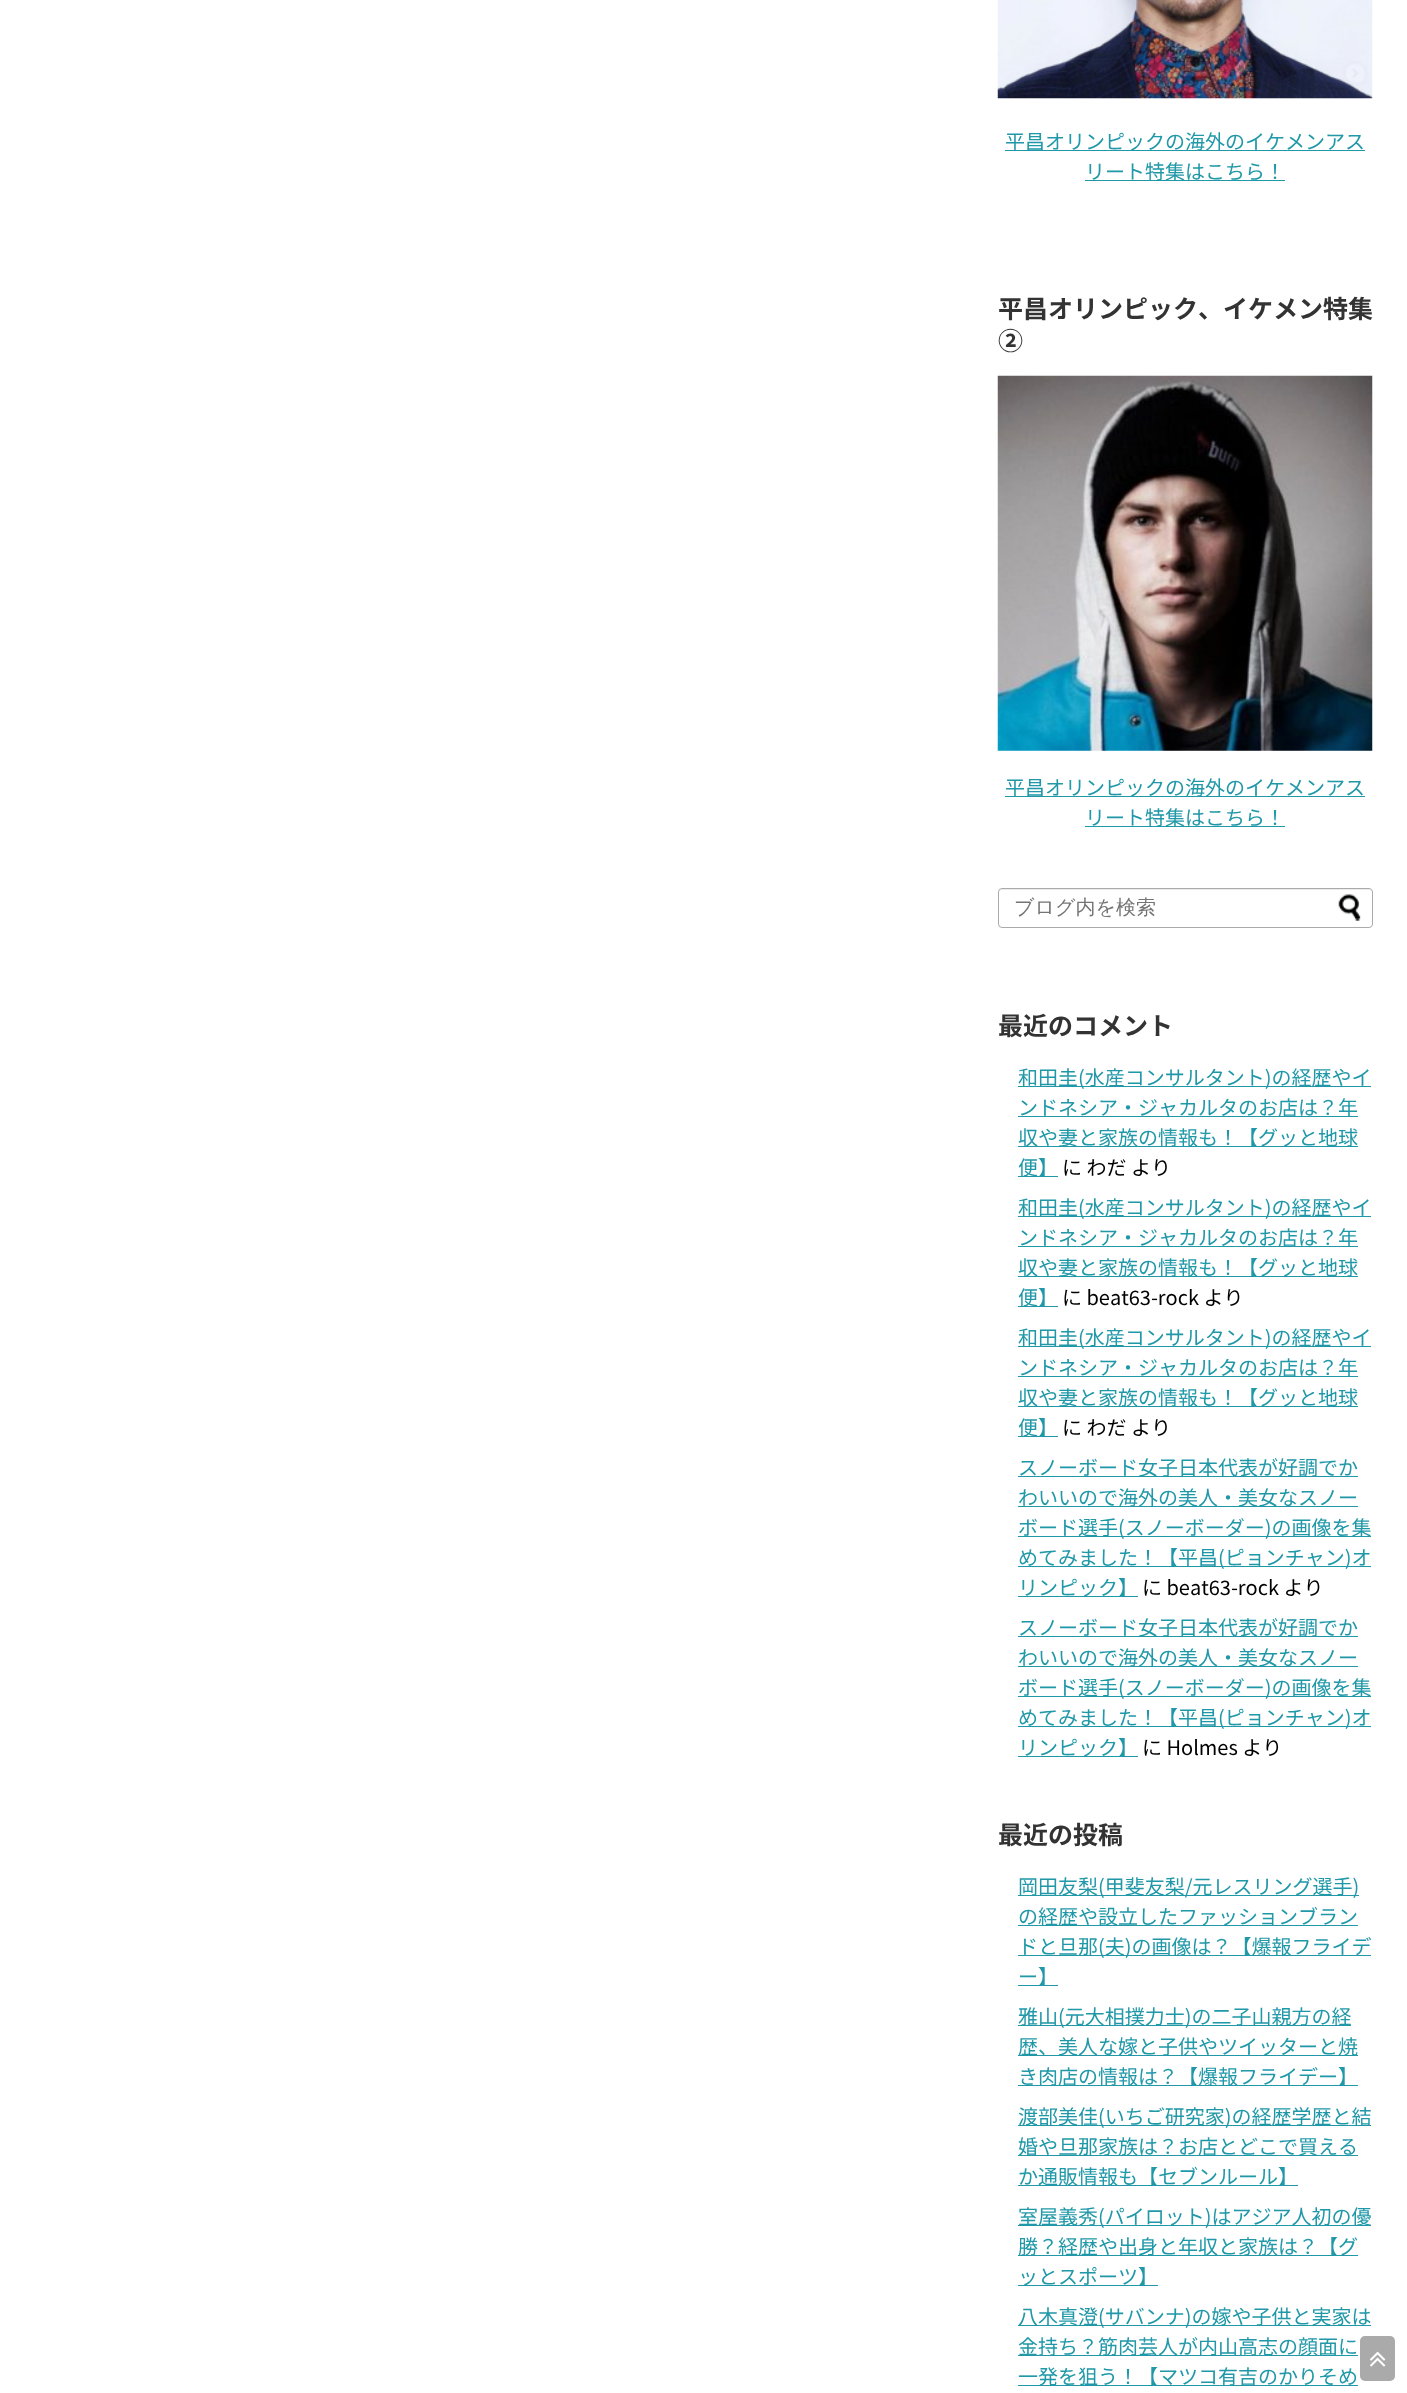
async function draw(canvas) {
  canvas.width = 1407;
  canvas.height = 2393;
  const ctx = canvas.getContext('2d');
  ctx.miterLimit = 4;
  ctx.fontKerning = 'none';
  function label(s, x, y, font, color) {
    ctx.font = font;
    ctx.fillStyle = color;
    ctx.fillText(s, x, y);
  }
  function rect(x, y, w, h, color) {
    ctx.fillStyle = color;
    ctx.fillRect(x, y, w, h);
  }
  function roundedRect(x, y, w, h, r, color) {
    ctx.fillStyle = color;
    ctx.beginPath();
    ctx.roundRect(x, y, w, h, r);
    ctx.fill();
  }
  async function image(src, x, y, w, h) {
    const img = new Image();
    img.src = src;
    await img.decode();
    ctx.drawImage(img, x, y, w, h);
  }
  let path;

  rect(0, 0, 1407, 2393, '#fff');
  await image('assets/img1.png', 997, 0, 376, 99);
  rect(1005, 150, 360, 1, '#2098a8');
  label('平昌オリンピックの海外のイケメンアス', 1005, 149, '20px Noto Sans JP', '#2098a8');
  rect(1085, 180, 200, 1, '#2098a8');
  label('リート特集はこちら！', 1085, 179, '20px Noto Sans JP', '#2098a8');
  label('平昌オリンピック、イケメン特集', 998, 318, 'bold 25px Noto Sans JP', '#333');
  label('②', 998, 350, 'bold 25px Noto Sans JP', '#333');
  await image('assets/img2.png', 997, 375, 376, 376);
  rect(1005, 796, 360, 1, '#2098a8');
  label('平昌オリンピックの海外のイケメンアス', 1005, 795, '20px Noto Sans JP', '#2098a8');
  rect(1085, 826, 200, 1, '#2098a8');
  label('リート特集はこちら！', 1085, 825, '20px Noto Sans JP', '#2098a8');
  ctx.fillStyle = '#ececec';
  path = new Path2D('M1001 890H1369C1370 890 1371 891 1371 892C1371 890 1370 889 1368 889H1002L1000 890L999 892C999 891 1000 890 1001 890Z');
  ctx.fill(path);
  ctx.beginPath();
  ctx.roundRect(998.5, 888.5, 374, 39, 3.5);
  ctx.strokeStyle = '#aaa';
  ctx.stroke();
  label('ブログ内を検索', 1014, 914, '500 20px WenQuanYi Zen Hei', '#757575');
  await image('assets/img3.png', 1338, 894, 23, 27);
  label('最近のコメント', 998, 1035, 'bold 25px Noto Sans JP', '#333');
  rect(1018, 1086, 353, 1, '#2098a8');
  label('和田圭(水産コンサルタント)の経歴やイ', 1018, 1085, '20px Noto Sans JP', '#2098a8');
  rect(1018, 1116, 340, 1, '#2098a8');
  label('ンドネシア・ジャカルタのお店は？年', 1018, 1115, '20px Noto Sans JP', '#2098a8');
  rect(1018, 1146, 340, 1, '#2098a8');
  label('収や妻と家族の情報も！【グッと地球', 1018, 1145, '20px Noto Sans JP', '#2098a8');
  rect(1018, 1176, 40, 1, '#2098a8');
  label('便】', 1018, 1175, '20px Noto Sans JP', '#2098a8');
  label('に わだ より', 1062, 1175, '20px Noto Sans JP', '#000');
  rect(1018, 1216, 353, 1, '#2098a8');
  label('和田圭(水産コンサルタント)の経歴やイ', 1018, 1215, '20px Noto Sans JP', '#2098a8');
  rect(1018, 1246, 340, 1, '#2098a8');
  label('ンドネシア・ジャカルタのお店は？年', 1018, 1245, '20px Noto Sans JP', '#2098a8');
  rect(1018, 1276, 340, 1, '#2098a8');
  label('収や妻と家族の情報も！【グッと地球', 1018, 1275, '20px Noto Sans JP', '#2098a8');
  rect(1018, 1306, 40, 1, '#2098a8');
  label('便】', 1018, 1305, '20px Noto Sans JP', '#2098a8');
  label('に beat63-rock より', 1062, 1305, '20px Noto Sans JP', '#000');
  rect(1018, 1346, 353, 1, '#2098a8');
  label('和田圭(水産コンサルタント)の経歴やイ', 1018, 1345, '20px Noto Sans JP', '#2098a8');
  rect(1018, 1376, 340, 1, '#2098a8');
  label('ンドネシア・ジャカルタのお店は？年', 1018, 1375, '20px Noto Sans JP', '#2098a8');
  rect(1018, 1406, 340, 1, '#2098a8');
  label('収や妻と家族の情報も！【グッと地球', 1018, 1405, '20px Noto Sans JP', '#2098a8');
  rect(1018, 1436, 40, 1, '#2098a8');
  label('便】', 1018, 1435, '20px Noto Sans JP', '#2098a8');
  label('に わだ より', 1062, 1435, '20px Noto Sans JP', '#000');
  rect(1018, 1476, 340, 1, '#2098a8');
  label('スノーボード女子日本代表が好調でか', 1018, 1475, '20px Noto Sans JP', '#2098a8');
  rect(1018, 1506, 340, 1, '#2098a8');
  label('わいいので海外の美人・美女なスノー', 1018, 1505, '20px Noto Sans JP', '#2098a8');
  rect(1018, 1536, 353, 1, '#2098a8');
  label('ボード選手(スノーボーダー)の画像を集', 1018, 1535, '20px Noto Sans JP', '#2098a8');
  rect(1018, 1566, 353, 1, '#2098a8');
  label('めてみました！【平昌(ピョンチャン)オ', 1018, 1565, '20px Noto Sans JP', '#2098a8');
  rect(1018, 1596, 120, 1, '#2098a8');
  label('リンピック】', 1018, 1595, '20px Noto Sans JP', '#2098a8');
  label('に beat63-rock より', 1142, 1595, '20px Noto Sans JP', '#000');
  rect(1018, 1636, 340, 1, '#2098a8');
  label('スノーボード女子日本代表が好調でか', 1018, 1635, '20px Noto Sans JP', '#2098a8');
  rect(1018, 1666, 340, 1, '#2098a8');
  label('わいいので海外の美人・美女なスノー', 1018, 1665, '20px Noto Sans JP', '#2098a8');
  rect(1018, 1696, 353, 1, '#2098a8');
  label('ボード選手(スノーボーダー)の画像を集', 1018, 1695, '20px Noto Sans JP', '#2098a8');
  rect(1018, 1726, 353, 1, '#2098a8');
  label('めてみました！【平昌(ピョンチャン)オ', 1018, 1725, '20px Noto Sans JP', '#2098a8');
  rect(1018, 1756, 120, 1, '#2098a8');
  label('リンピック】', 1018, 1755, '20px Noto Sans JP', '#2098a8');
  label('に Holmes より', 1142, 1755, '20px Noto Sans JP', '#000');
  label('最近の投稿', 998, 1844, 'bold 25px Noto Sans JP', '#333');
  rect(1018, 1895, 341, 1, '#2098a8');
  label('岡田友梨(甲斐友梨/元レスリング選手)', 1018, 1894, '20px Noto Sans JP', '#2098a8');
  rect(1018, 1925, 340, 1, '#2098a8');
  label('の経歴や設立したファッションブラン', 1018, 1924, '20px Noto Sans JP', '#2098a8');
  rect(1018, 1955, 353, 1, '#2098a8');
  label('ドと旦那(夫)の画像は？【爆報フライデ', 1018, 1954, '20px Noto Sans JP', '#2098a8');
  rect(1018, 1985, 40, 1, '#2098a8');
  label('ー】', 1018, 1984, '20px Noto Sans JP', '#2098a8');
  rect(1018, 2025, 333, 1, '#2098a8');
  label('雅山(元大相撲力士)の二子山親方の経', 1018, 2024, '20px Noto Sans JP', '#2098a8');
  rect(1018, 2055, 340, 1, '#2098a8');
  label('歴、美人な嫁と子供やツイッターと焼', 1018, 2054, '20px Noto Sans JP', '#2098a8');
  rect(1018, 2085, 340, 1, '#2098a8');
  label('き肉店の情報は？【爆報フライデー】', 1018, 2084, '20px Noto Sans JP', '#2098a8');
  rect(1018, 2125, 353, 1, '#2098a8');
  label('渡部美佳(いちご研究家)の経歴学歴と結', 1018, 2124, '20px Noto Sans JP', '#2098a8');
  rect(1018, 2155, 340, 1, '#2098a8');
  label('婚や旦那家族は？お店とどこで買える', 1018, 2154, '20px Noto Sans JP', '#2098a8');
  rect(1018, 2185, 280, 1, '#2098a8');
  label('か通販情報も【セブンルール】', 1018, 2184, '20px Noto Sans JP', '#2098a8');
  rect(1018, 2225, 353, 1, '#2098a8');
  label('室屋義秀(パイロット)はアジア人初の優', 1018, 2224, '20px Noto Sans JP', '#2098a8');
  rect(1018, 2255, 340, 1, '#2098a8');
  label('勝？経歴や出身と年収と家族は？【グ', 1018, 2254, '20px Noto Sans JP', '#2098a8');
  rect(1018, 2285, 140, 1, '#2098a8');
  label('ッとスポーツ】', 1018, 2284, '20px Noto Sans JP', '#2098a8');
  rect(1018, 2325, 353, 1, '#2098a8');
  label('八木真澄(サバンナ)の嫁や子供と実家は', 1018, 2324, '20px Noto Sans JP', '#2098a8');
  rect(1018, 2355, 340, 1, '#2098a8');
  label('金持ち？筋肉芸人が内山高志の顔面に', 1018, 2354, '20px Noto Sans JP', '#2098a8');
  rect(1018, 2385, 340, 1, '#2098a8');
  label('一発を狙う！【マツコ有吉のかりそめ', 1018, 2384, '20px Noto Sans JP', '#2098a8');
  roundedRect(1360, 2336, 35, 45, 5, '#aaa');
  await image('assets/img4.png', 1370, 2351, 16, 16);
}

draw(document.querySelector('canvas'));
